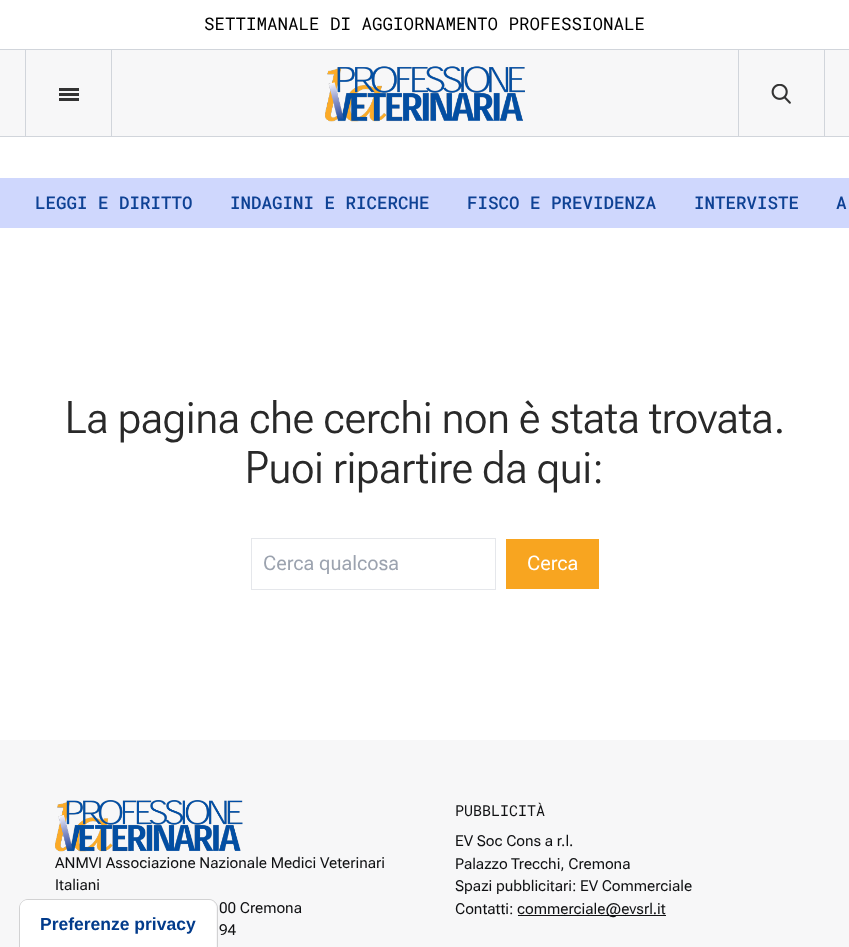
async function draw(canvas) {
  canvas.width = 849;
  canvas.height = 947;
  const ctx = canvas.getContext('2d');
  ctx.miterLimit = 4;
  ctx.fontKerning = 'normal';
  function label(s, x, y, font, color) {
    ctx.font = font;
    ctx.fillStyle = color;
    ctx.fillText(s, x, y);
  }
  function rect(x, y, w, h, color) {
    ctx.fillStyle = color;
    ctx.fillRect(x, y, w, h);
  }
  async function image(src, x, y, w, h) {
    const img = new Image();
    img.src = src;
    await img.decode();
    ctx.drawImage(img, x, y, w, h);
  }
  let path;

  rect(0, 0, 849, 947, '#fff');
  rect(0, 49, 849, 1, '#d1d5db');
  label('SETTIMANALE DI AGGIORNAMENTO PROFESSIONALE', 204, 30, '17.5px Roboto Mono', '#000');
  rect(0, 50, 849, 86, '#f7f7f8');
  rect(0, 136, 849, 1, '#d1d5db');
  rect(111, 50, 1, 86, '#d1d5db');
  rect(25, 50, 1, 86, '#d1d5db');
  rect(59, 98, 20, 3, '#333');
  rect(59, 88, 20, 3, '#333');
  rect(59, 93, 20, 3, '#333');
  await image('assets/img1.png', 325, 66, 200, 56);
  rect(824, 50, 1, 86, '#d1d5db');
  rect(738, 50, 1, 86, '#d1d5db');
  await image('assets/img2.png', 771, 84, 20, 20);
  rect(0, 178, 849, 50, '#cfd7fd');
  label('LEGGI E DIRITTO', 35, 209, '500 17.5px Roboto Mono', '#0e4194');
  label('INDAGINI E RICERCHE', 230, 209, '500 17.5px Roboto Mono', '#0e4194');
  label('FISCO E PREVIDENZA', 467, 209, '500 17.5px Roboto Mono', '#0e4194');
  label('INTERVISTE', 694, 209, '500 17.5px Roboto Mono', '#0e4194');
  label('A', 836, 209, '500 17.5px Roboto Mono', '#0e4194');
  label('La pagina che cerchi non è stata trovata.', 65, 433, '45px Roboto Flex', '#292929');
  label('Puoi ripartire da qui:', 245, 483, '45px Roboto Flex', '#292929');
  ctx.strokeStyle = '#e5e7eb';
  ctx.strokeRect(251.5, 538.5, 244, 51);
  label('Cerca qualcosa', 263, 570, '20px "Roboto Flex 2"', '#9ca3af');
  rect(506, 539, 93, 50, '#f8a520');
  label('Cerca', 527, 570, '20px "Roboto Flex 2"', '#fff');
  rect(0, 740, 849, 207, '#f7f7f8');
  await image('assets/img3.png', 55, 800, 188, 52);
  label('ANMVI Associazione Nazionale Medici Veterinari', 55, 868, '15px "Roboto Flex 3"', '#101113');
  label('Italiani', 55, 890, '15px "Roboto Flex 3"', '#101113');
  label('00 Cremona', 219, 913, '15px "Roboto Flex 3"', '#101113');
  label('94', 219, 935, '15px "Roboto Flex 3"', '#101113');
  label('PUBBLICITÀ', 455, 816, '15px Roboto Mono', '#101113');
  label('EV Soc Cons a r.l.', 455, 846, '15px "Roboto Flex 3"', '#101113');
  label('Palazzo Trecchi, Cremona', 455, 869, '15px "Roboto Flex 3"', '#101113');
  label('Spazi pubblicitari: EV Commerciale', 455, 891, '15px "Roboto Flex 3"', '#101113');
  label('Contatti:', 455, 914, '15px "Roboto Flex 3"', '#101113');
  rect(518, 915, 148, 1, '#101113');
  label('commerciale@evsrl.it', 517, 914, '15px "Roboto Flex 3"', '#101113');
  path = new Path2D('M28 899.5H209C213.5 899.5 217.5 903.5 217.5 908V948.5H19.5V908C19.5 903.5 23.5 899.5 28 899.5Z');
  ctx.strokeStyle = '#00000026';
  ctx.stroke(path);
  ctx.fillStyle = '#fff';
  path = new Path2D('M28 900H208C212.5 900 216 903.5 216 908V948H20V908C20 903.5 23.5 900 28 900Z');
  ctx.fill(path);
  label('Preferenze privacy', 40, 930, 'bold 17.5px Liberation Sans', '#023b8b');
}

draw(document.querySelector('canvas'));
